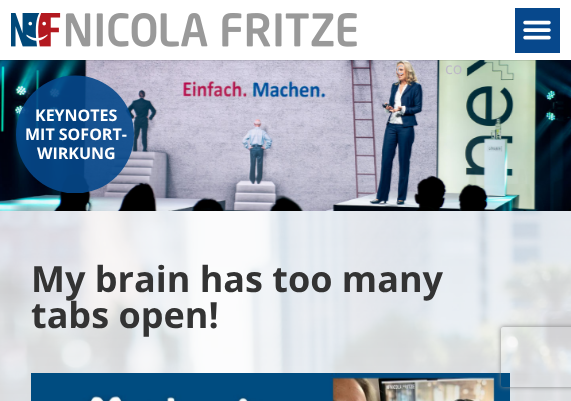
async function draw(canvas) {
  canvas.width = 571;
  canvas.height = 401;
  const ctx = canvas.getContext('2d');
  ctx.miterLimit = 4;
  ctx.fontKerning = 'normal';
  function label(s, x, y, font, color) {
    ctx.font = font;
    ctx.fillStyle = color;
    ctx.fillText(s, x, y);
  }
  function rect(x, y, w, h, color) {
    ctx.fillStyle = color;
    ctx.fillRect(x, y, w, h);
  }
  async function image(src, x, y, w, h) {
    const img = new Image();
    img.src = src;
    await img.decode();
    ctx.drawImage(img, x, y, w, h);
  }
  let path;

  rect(0, 0, 571, 401, '#fff');
  await image('assets/img3.png', 0, 60, 571, 151);
  rect(0, 60, 571, 1, '#0000001a');
  await image('assets/img1.png', 11, 13, 346, 34);
  rect(515, 8, 45, 45, '#07488c');
  await image('assets/img2.png', 523, 20, 28, 20);
  label('c', 396, 74, '16px Open Sans', '#bdb9c7');
  label('co', 445, 74, '16px Open Sans', '#bdb9c7');
  ctx.save();
  ctx.beginPath();
  ctx.rect(16, 75, 119, 118);
  ctx.clip();
  ctx.fillStyle = '#05488be6';
  ctx.beginPath();
  ctx.arc(75, 134.5, 59, 0, 2 * Math.PI);
  ctx.fill();
  ctx.restore();
  label('KEYNOTES', 35, 121, 'bold 16px Open Sans', '#fff');
  label('MIT SOFORT-', 25, 140, 'bold 16px Open Sans', '#fff');
  label('WIRKUNG', 37, 159, 'bold 16px Open Sans', '#fff');
  await image('assets/img4.png', 0, 211, 571, 190);
  label('My brain has too many', 31, 292, 'bold 36px Open Sans', '#333');
  label('tabs open!', 31, 328, 'bold 36px Open Sans', '#333');
  await image('assets/img5.png', 31, 373, 479, 28);
  ctx.save();
  path = new Path2D('M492 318H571V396H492ZM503 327H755C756 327 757 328 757 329V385C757 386 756 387 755 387H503C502 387 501 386 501 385V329C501 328 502 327 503 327Z');
  ctx.clip(path, 'evenodd');
  ctx.fillStyle = '#808080';
  ctx.filter = 'blur(2.5px)';
  ctx.beginPath();
  ctx.roundRect(501, 327, 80, 60, 2);
  ctx.fill();
  ctx.filter = 'none';
  ctx.restore();
}

draw(document.querySelector('canvas'));
